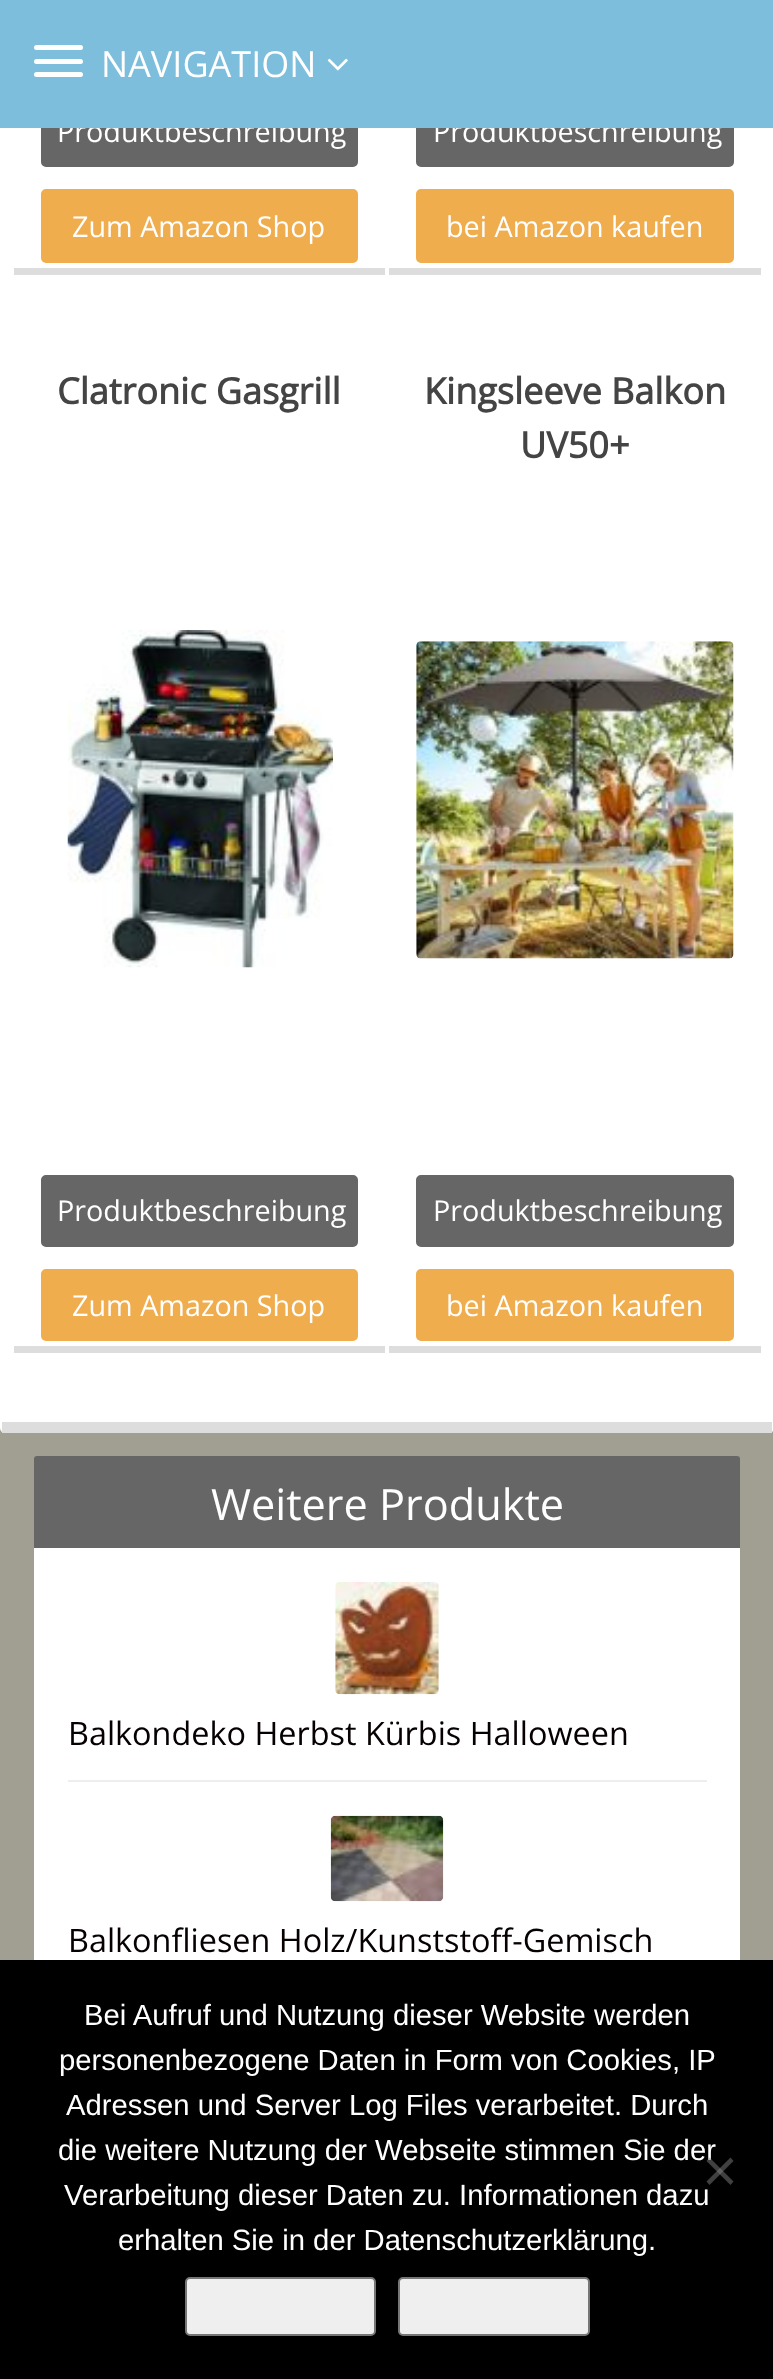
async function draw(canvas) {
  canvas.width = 773;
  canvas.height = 2379;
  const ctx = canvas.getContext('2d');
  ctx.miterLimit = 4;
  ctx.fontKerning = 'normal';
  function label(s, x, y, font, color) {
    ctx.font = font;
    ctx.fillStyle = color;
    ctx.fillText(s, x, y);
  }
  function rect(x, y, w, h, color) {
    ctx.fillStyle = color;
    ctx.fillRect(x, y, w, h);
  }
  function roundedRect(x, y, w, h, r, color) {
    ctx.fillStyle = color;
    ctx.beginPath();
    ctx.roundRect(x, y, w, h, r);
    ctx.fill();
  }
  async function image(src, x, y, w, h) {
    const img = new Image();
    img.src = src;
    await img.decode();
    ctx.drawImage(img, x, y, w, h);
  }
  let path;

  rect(0, 0, 773, 2379, '#a19e92');
  roundedRect(0, -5, 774, 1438, 5, '#fff');
  ctx.fillStyle = '#666';
  ctx.beginPath();
  ctx.roundRect(42, 96, 315, 70, 4);
  ctx.fill();
  ctx.strokeStyle = '#666';
  ctx.lineWidth = 2;
  ctx.stroke();
  label('Produktbeschreibung', 57, 142, '28.75px Open Sans', '#fff');
  ctx.fillStyle = '#666';
  ctx.beginPath();
  ctx.roundRect(417, 96, 316, 70, 4);
  ctx.fill();
  ctx.stroke();
  label('Produktbeschreibung', 433, 142, '28.75px Open Sans', '#fff');
  rect(0, 0, 773, 128, '#7dbedd');
  roundedRect(34, 45, 49, 5, 2.5, '#fff');
  roundedRect(34, 59, 49, 5, 2.5, '#fff');
  roundedRect(34, 72, 49, 5, 2.5, '#fff');
  label('NAVIGATION', 101, 77, '36px Open Sans', '#fff');
  await image('assets/img1.png', 327, 58, 21, 13);
  rect(2, 1422, 770, 11, '#ddd');
  rect(14, 268, 371, 7, '#ddd');
  ctx.fillStyle = '#f0ad4e';
  ctx.beginPath();
  ctx.roundRect(42, 190, 315, 72, 4);
  ctx.fill();
  ctx.strokeStyle = '#f0ad4e';
  ctx.stroke();
  label('Zum Amazon Shop', 72, 237, '28.75px Open Sans', '#fff');
  rect(389, 268, 372, 7, '#ddd');
  ctx.fillStyle = '#f0ad4e';
  ctx.beginPath();
  ctx.roundRect(417, 190, 316, 72, 4);
  ctx.fill();
  ctx.stroke();
  label('bei Amazon kaufen', 446, 237, '28.75px Open Sans', '#fff');
  rect(14, 1346, 371, 7, '#ddd');
  label('Clatronic Gasgrill', 57, 404, 'bold 36px Open Sans', '#444');
  await image('assets/img2.png', 67, 630, 266, 338);
  ctx.fillStyle = '#666';
  ctx.beginPath();
  ctx.roundRect(42, 1176, 315, 70, 4);
  ctx.fill();
  ctx.strokeStyle = '#666';
  ctx.stroke();
  label('Produktbeschreibung', 57, 1221, '28.75px Open Sans', '#fff');
  ctx.fillStyle = '#f0ad4e';
  ctx.beginPath();
  ctx.roundRect(42, 1270, 315, 70, 4);
  ctx.fill();
  ctx.strokeStyle = '#f0ad4e';
  ctx.stroke();
  label('Zum Amazon Shop', 72, 1316, '28.75px Open Sans', '#fff');
  rect(389, 1346, 372, 7, '#ddd');
  label('Kingsleeve Balkon', 424, 404, 'bold 36px Open Sans', '#444');
  label('UV50+', 520, 458, 'bold 36px Open Sans', '#444');
  await image('assets/img3.png', 416, 641, 318, 318);
  ctx.fillStyle = '#666';
  ctx.beginPath();
  ctx.roundRect(417, 1176, 316, 70, 4);
  ctx.fill();
  ctx.strokeStyle = '#666';
  ctx.stroke();
  label('Produktbeschreibung', 433, 1221, '28.75px Open Sans', '#fff');
  ctx.fillStyle = '#f0ad4e';
  ctx.beginPath();
  ctx.roundRect(417, 1270, 316, 70, 4);
  ctx.fill();
  ctx.strokeStyle = '#f0ad4e';
  ctx.stroke();
  label('bei Amazon kaufen', 446, 1316, '28.75px Open Sans', '#fff');
  roundedRect(34, 1456, 706, 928, 5, '#fff');
  ctx.fillStyle = '#666';
  path = new Path2D('M34 1459C34 1457 35 1456 37 1456H737C739 1456 740 1457 740 1459V1548H34Z');
  ctx.fill(path);
  label('Weitere Produkte', 211, 1520, '43.25px Open Sans', '#fff');
  rect(68, 1780, 639, 2, '#eee');
  await image('assets/img4.png', 335, 1582, 104, 113);
  label('Balkondeko Herbst Kürbis Halloween', 68, 1745, '32.4px Open Sans', '#060000');
  await image('assets/img5.png', 330, 1815, 114, 87);
  label('Balkonfliesen Holz/Kunststoff-Gemisch', 68, 1952, '32.4px Open Sans', '#060000');
  rect(0, 1960, 773, 419, '#000');
  label('Bei Aufruf und Nutzung dieser Website werden', 84, 2025, '29.25px Liberation Sans', '#fff');
  label('personenbezogene Daten in Form von Cookies, IP', 59, 2070, '29.25px Liberation Sans', '#fff');
  label('Adressen und Server Log Files verarbeitet. Durch', 66, 2115, '29.25px Liberation Sans', '#fff');
  label('die weitere Nutzung der Webseite stimmen Sie der', 58, 2160, '29.25px Liberation Sans', '#fff');
  label('Verarbeitung dieser Daten zu. Informationen dazu', 64, 2205, '29.25px Liberation Sans', '#fff');
  label('erhalten Sie in der Datenschutzerklärung.', 118, 2250, '29.25px Liberation Sans', '#fff');
  ctx.fillStyle = '#404040';
  path = new Path2D('M730.5 2157.5L733.5 2161L709.5 2185L706.5 2181.5Z');
  ctx.fill(path);
  ctx.fillStyle = '#80808080';
  path = new Path2D('M706.5 2161L709.5 2157.5L733.5 2181.5L730.5 2185Z');
  ctx.fill(path);
  ctx.fillStyle = '#efefef';
  ctx.beginPath();
  ctx.roundRect(186, 2278, 189, 57, 4);
  ctx.fill();
  ctx.strokeStyle = '#767676';
  ctx.stroke();
  ctx.beginPath();
  ctx.roundRect(399, 2278, 190, 57, 4);
  ctx.fill();
  ctx.stroke();
}

draw(document.querySelector('canvas'));
